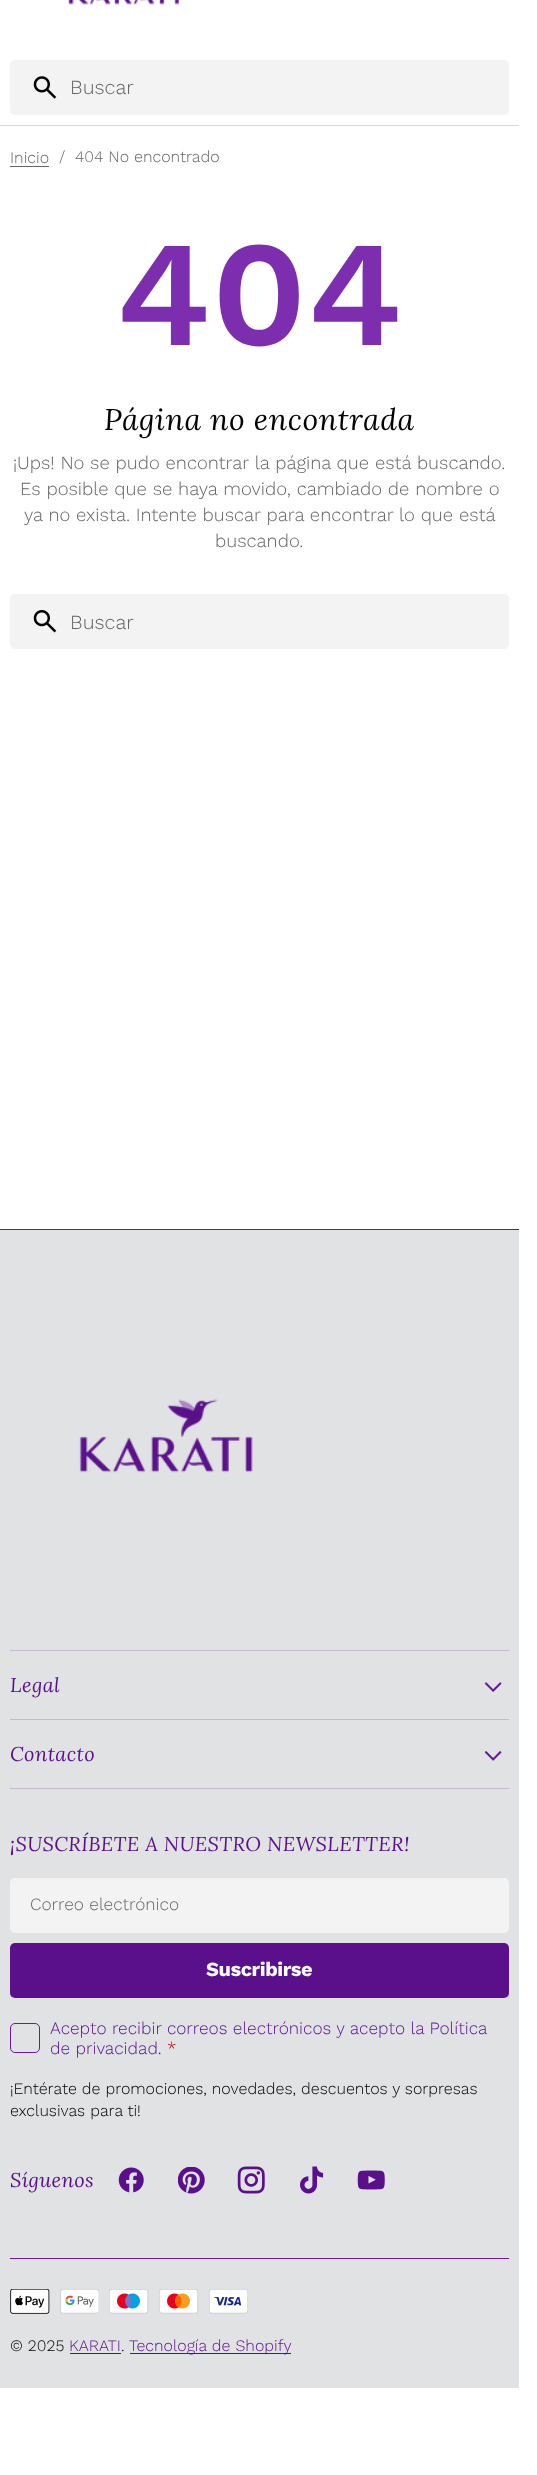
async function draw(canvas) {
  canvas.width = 537;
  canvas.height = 2475;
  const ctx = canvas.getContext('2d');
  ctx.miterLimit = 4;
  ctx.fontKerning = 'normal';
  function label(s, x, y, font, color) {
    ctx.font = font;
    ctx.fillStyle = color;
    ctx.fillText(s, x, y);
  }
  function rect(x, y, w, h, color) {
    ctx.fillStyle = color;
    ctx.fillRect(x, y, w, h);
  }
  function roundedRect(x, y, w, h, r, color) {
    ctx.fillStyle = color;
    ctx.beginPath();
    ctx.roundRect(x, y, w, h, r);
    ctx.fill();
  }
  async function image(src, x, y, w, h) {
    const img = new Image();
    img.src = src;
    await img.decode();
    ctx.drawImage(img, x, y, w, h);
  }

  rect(0, 0, 537, 2475, '#fff');
  rect(0, 125, 519, 1, '#d9d9d9');
  await image('assets/img1.png', 68, 0, 112, 5);
  roundedRect(10, 60, 499, 55, 5, '#f3f3f3');
  await image('assets/img2.png', 33, 76, 24, 23);
  label('Buscar', 70, 94, '300 20px Work Sans', '#656565');
  rect(10, 166, 39, 1, '#656565');
  label('Inicio', 10, 163, '300 16px Work Sans', '#656565');
  label('/', 59, 162, '300 16px Work Sans', '#656565');
  label('404 No encontrado', 75, 162, '300 16px Work Sans', '#656565');
  ctx.letterSpacing = '0.6px';
  label('404', 116, 345, '600 150px Work Sans', '#7c2eae');
  label('Página no encontrada', 104, 430, 'italic 30px Lora', '#000');
  ctx.letterSpacing = '0px';
  label('¡Ups! No se pudo encontrar la página que está buscando.', 13, 469, '300 18.5px Work Sans', '#656565');
  label('Es posible que se haya movido, cambiado de nombre o', 20, 495, '300 18.5px Work Sans', '#656565');
  label('ya no exista. Intente buscar para encontrar lo que está', 24, 521, '300 18.5px Work Sans', '#656565');
  label('buscando.', 215, 547, '300 18.5px Work Sans', '#656565');
  roundedRect(10, 594, 499, 55, 5, '#f3f3f3');
  await image('assets/img3.png', 33, 610, 24, 23);
  roundedRect(60, 594, 449, 55, 5, '#f3f3f3');
  label('Buscar', 70, 629, '300 20px Work Sans', '#656565');
  rect(0, 1230, 519, 1158, '#e0e2e4');
  rect(0, 1229, 519, 1, '#6e16a6');
  await image('assets/img4.png', 79, 1399, 174, 74);
  rect(10, 1650, 499, 1, '#c5b8d2');
  rect(10, 1719, 499, 1, '#c5b8d2');
  ctx.letterSpacing = '0.4px';
  label('Legal', 10, 1692, 'italic 20px Lora', '#5b108b');
  await image('assets/img5.png', 484, 1682, 18, 10);
  rect(10, 1788, 499, 1, '#c5b8d2');
  label('Contacto', 10, 1761, 'italic 20px Lora', '#5b108b');
  await image('assets/img6.png', 484, 1751, 18, 10);
  label('¡SUSCRÍBETE A NUESTRO NEWSLETTER!', 10, 1851, 'italic 20px Lora', '#5b108b');
  roundedRect(10, 1878, 499, 55, 5, '#f3f3f3');
  ctx.letterSpacing = '0px';
  label('Correo electrónico', 30, 1910, '300 17.25px Work Sans', '#656565');
  roundedRect(10, 1943, 499, 55, 5, '#5b108b');
  ctx.letterSpacing = '-0.4px';
  label('Suscribirse', 206, 1976, 'bold 20px Work Sans', '#fff');
  ctx.beginPath();
  ctx.roundRect(10.5, 2023.5, 29, 29, 4.5);
  ctx.strokeStyle = '#6e16a6';
  ctx.stroke();
  ctx.letterSpacing = '0px';
  label('Acepto recibir correos electrónicos y acepto la Política', 50, 2034, '300 17.25px Work Sans', '#5b108b');
  label('de privacidad.', 50, 2054, '300 17.25px Work Sans', '#5b108b');
  label('*', 167, 2054, '300 17.25px Work Sans', '#d00000');
  label('¡Entérate de promociones, novedades, descuentos y sorpresas', 10, 2094, '300 16px Work Sans', '#000');
  label('exclusivas para ti!', 10, 2116, '300 16px Work Sans', '#000');
  ctx.letterSpacing = '0.4px';
  label('Síguenos', 10, 2187, 'italic 20px Lora', '#5b108b');
  await image('assets/img7.png', 118, 2167, 26, 26);
  await image('assets/img8.png', 178, 2167, 27, 27);
  await image('assets/img9.png', 237, 2166, 28, 28);
  await image('assets/img10.png', 300, 2166, 24, 28);
  await image('assets/img11.png', 357, 2170, 28, 20);
  rect(10, 2258, 499, 1, '#6e16a6');
  await image('assets/img12.png', 10, 2289, 40, 25);
  await image('assets/img13.png', 60, 2289, 39, 25);
  await image('assets/img14.png', 109, 2289, 40, 25);
  await image('assets/img15.png', 159, 2289, 40, 25);
  await image('assets/img16.png', 209, 2289, 39, 25);
  ctx.letterSpacing = '0px';
  label('© 2025', 10, 2351, '300 16px Work Sans', '#000');
  label('KARATI', 69, 2351, '300 16px Work Sans', '#5b108b');
  label('.', 121, 2351, '300 16px Work Sans', '#000');
  rect(70, 2353, 51, 1, '#5b108b');
  rect(130, 2353, 161, 1, '#5b108b');
  label('Tecnología de Shopify', 129, 2351, '300 16px Work Sans', '#5b108b');
}

draw(document.querySelector('canvas'));
